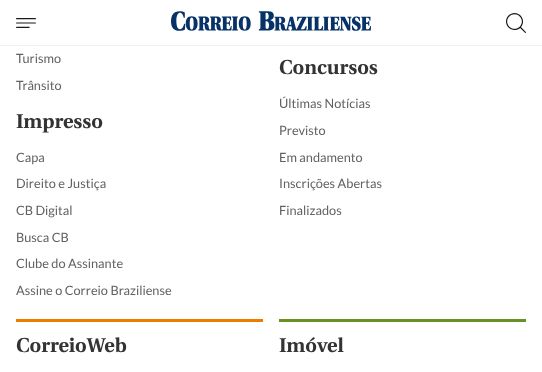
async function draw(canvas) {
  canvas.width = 542;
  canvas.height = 372;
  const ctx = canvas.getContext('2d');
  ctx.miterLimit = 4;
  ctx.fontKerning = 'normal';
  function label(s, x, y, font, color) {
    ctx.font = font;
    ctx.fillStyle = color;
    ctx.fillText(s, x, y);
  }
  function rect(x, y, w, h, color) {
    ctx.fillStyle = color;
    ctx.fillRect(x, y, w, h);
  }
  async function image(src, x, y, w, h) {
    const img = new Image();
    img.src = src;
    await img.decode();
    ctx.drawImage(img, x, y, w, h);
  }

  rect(0, 0, 542, 372, '#fff');
  rect(0, 45, 542, 1, '#f1f1f1');
  await image('assets/img1.png', 16, 18, 20, 10);
  await image('assets/img2.png', 171, 11, 200, 20);
  await image('assets/img3.png', 506, 13, 20, 20);
  label('Turismo', 16, 63, '12.75px Lato', '#616161');
  label('Trânsito', 16, 90, '12.75px Lato', '#616161');
  label('Impresso', 16, 128, 'bold 20px Utopia', '#333');
  label('Capa', 16, 162, '12.75px Lato', '#616161');
  label('Direito e Justiça', 16, 188, '12.75px Lato', '#616161');
  label('CB Digital', 16, 215, '12.75px Lato', '#616161');
  label('Busca CB', 16, 242, '12.75px Lato', '#616161');
  label('Clube do Assinante', 16, 268, '12.75px Lato', '#616161');
  label('Assine o Correio Braziliense', 16, 295, '12.75px Lato', '#616161');
  label('Concursos', 279, 74, 'bold 20px Utopia', '#333');
  label('Últimas Notícias', 279, 108, '12.75px Lato', '#616161');
  label('Previsto', 279, 135, '12.75px Lato', '#616161');
  label('Em andamento', 279, 162, '12.75px Lato', '#616161');
  label('Inscrições Abertas', 279, 188, '12.75px Lato', '#616161');
  label('Finalizados', 279, 215, '12.75px Lato', '#616161');
  rect(16, 319, 247, 3, '#ed7d00');
  label('CorreioWeb', 16, 352, 'bold 20px Utopia', '#333');
  rect(279, 319, 247, 3, '#679123');
  label('Imóvel', 279, 352, 'bold 20px Utopia', '#333');
}

draw(document.querySelector('canvas'));
